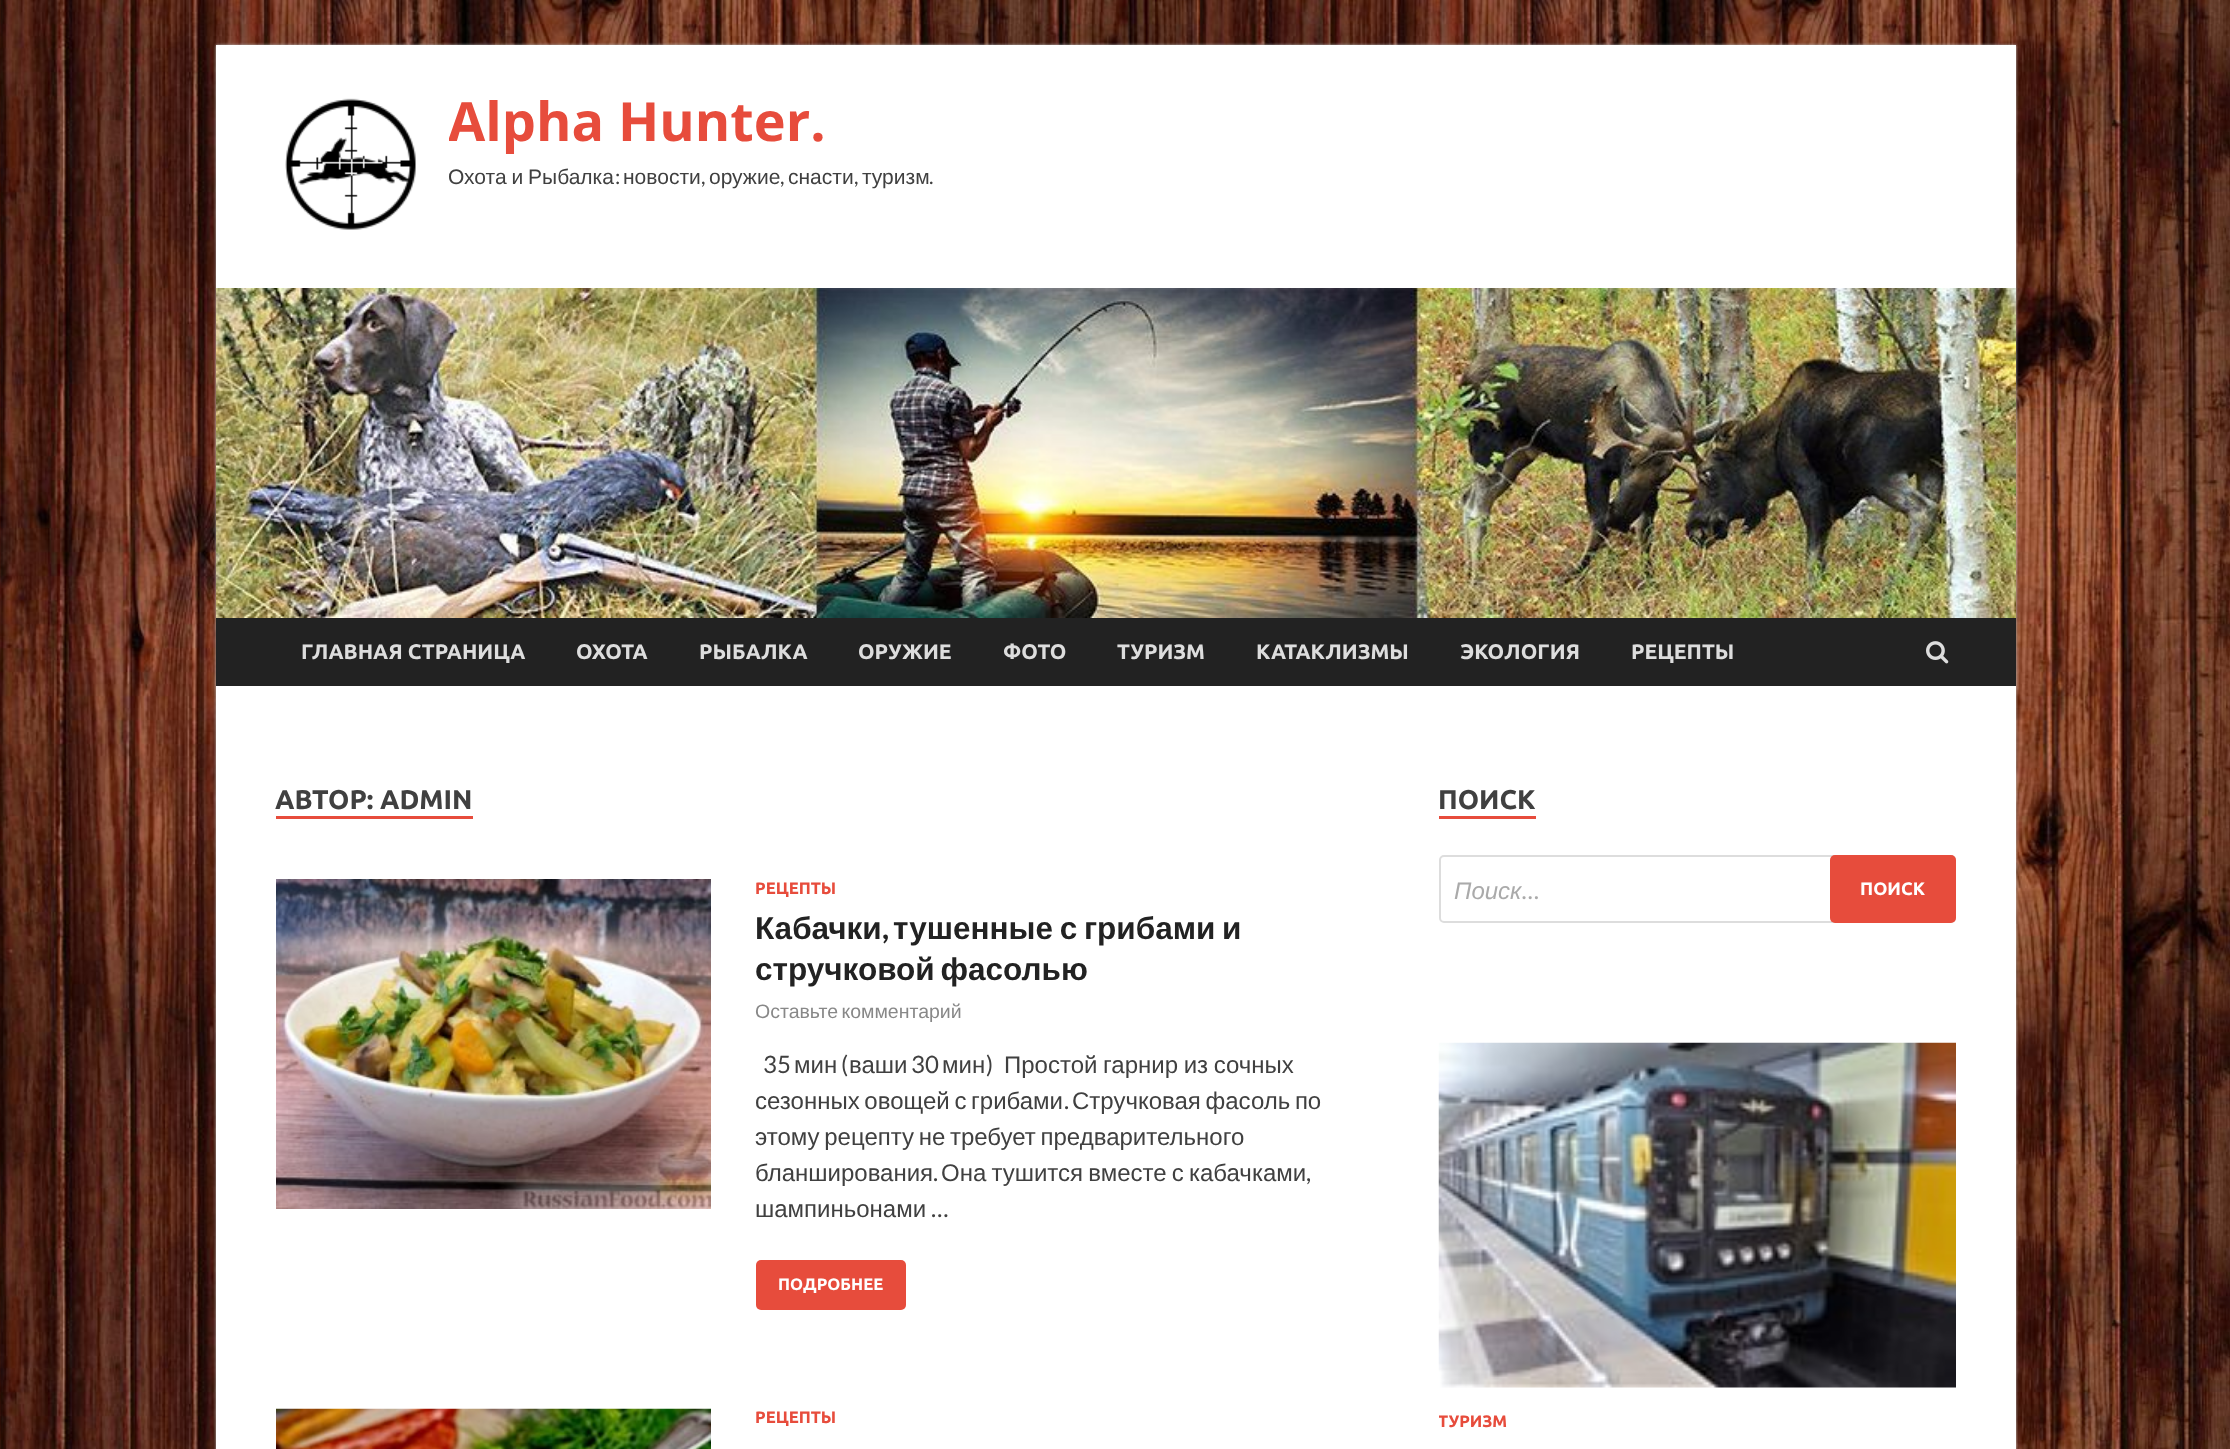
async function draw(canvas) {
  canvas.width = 2230;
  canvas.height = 1449;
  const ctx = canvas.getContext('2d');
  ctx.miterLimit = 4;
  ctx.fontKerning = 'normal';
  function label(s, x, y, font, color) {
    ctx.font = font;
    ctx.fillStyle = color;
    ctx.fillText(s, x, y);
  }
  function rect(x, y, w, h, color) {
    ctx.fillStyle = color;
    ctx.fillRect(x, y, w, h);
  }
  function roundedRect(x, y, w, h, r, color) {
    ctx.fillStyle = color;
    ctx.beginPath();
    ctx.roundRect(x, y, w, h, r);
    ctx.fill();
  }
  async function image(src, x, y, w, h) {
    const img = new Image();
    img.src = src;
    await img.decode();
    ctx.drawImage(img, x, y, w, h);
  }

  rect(0, 0, 2230, 1449, '#fff');
  await image('assets/img1.png', 0, 0, 2230, 1449);
  ctx.fillStyle = '#bbb';
  ctx.filter = 'blur(1.5px)';
  ctx.beginPath();
  ctx.rect(216, 45, 1800, 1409);
  ctx.fill();
  ctx.filter = 'none';
  rect(216, 45, 1800, 1404, '#fff');
  await image('assets/img2.png', 285, 98, 131, 132);
  ctx.save();
  ctx.beginPath();
  ctx.rect(449, 87, 484, 105);
  ctx.clip();
  label('Alpha Hunter.', 448, 141, 'bold 54px Open Sans', '#e74c3c');
  ctx.wordSpacing = '-1px';
  label('Охота и Рыбалка', 448, 184, '21px Liberation Sans', '#404040');
  ctx.restore();
  label(':', 615, 184, '21px Lato', '#404040');
  label('новости', 623, 184, '21px Liberation Sans', '#404040');
  label(',', 701, 184, '21px Lato', '#404040');
  label('оружие', 709, 184, '21px Liberation Sans', '#404040');
  label(',', 780, 184, '21px Lato', '#404040');
  label('снасти', 788, 184, '21px Liberation Sans', '#404040');
  label(',', 854, 184, '21px Lato', '#404040');
  label('туризм', 862, 184, '21px Liberation Sans', '#404040');
  label('.', 929, 184, '21px Lato', '#404040');
  await image('assets/img3.png', 216, 288, 1800, 330);
  rect(216, 618, 1800, 68, '#222');
  label('ГЛАВНАЯ СТРАНИЦА', 301, 659, 'bold 21px Ubuntu', '#ddd');
  label('ОХОТА', 576, 659, 'bold 21px Ubuntu', '#ddd');
  label('РЫБАЛКА', 699, 659, 'bold 21px Ubuntu', '#ddd');
  label('ОРУЖИЕ', 858, 659, 'bold 21px Ubuntu', '#ddd');
  label('ФОТО', 1003, 659, 'bold 21px Ubuntu', '#ddd');
  label('ТУРИЗМ', 1117, 659, 'bold 21px Ubuntu', '#ddd');
  label('КАТАКЛИЗМЫ', 1256, 659, 'bold 21px Ubuntu', '#ddd');
  label('ЭКОЛОГИЯ', 1460, 659, 'bold 21px Ubuntu', '#ddd');
  label('РЕЦЕПТЫ', 1631, 659, 'bold 21px Ubuntu', '#ddd');
  await image('assets/img4.png', 1926, 641, 23, 23);
  label('АВТОР: ADMIN', 275, 809, 'bold 27px Ubuntu', '#404040');
  rect(276, 816, 197, 3, '#e74c3c');
  await image('assets/img5.png', 276, 879, 435, 330);
  label('РЕЦЕПТЫ', 755, 894, 'bold 16.5px Ubuntu', '#e74c3c');
  label('Кабачки', 755, 939, 'bold 31.5px Liberation Sans', '#222');
  label(',', 882, 939, 'bold 31.5px Lato', '#222');
  ctx.wordSpacing = '-2px';
  label('тушенные с грибами и', 893, 939, 'bold 31.5px Liberation Sans', '#222');
  ctx.wordSpacing = '-3px';
  label('стручковой фасолью', 755, 980, 'bold 31.5px Liberation Sans', '#222');
  ctx.wordSpacing = '-2px';
  label('Оставьте комментарий', 755, 1018, '19.5px Liberation Sans', '#888');
  ctx.wordSpacing = '0px';
  label('35', 763, 1073, '24px Lato', '#404040');
  label('мин', 794, 1073, '24px Liberation Sans', '#404040');
  label('(', 841, 1073, '24px Lato', '#404040');
  label('ваши', 849, 1073, '24px Liberation Sans', '#404040');
  label('30', 911, 1073, '24px Lato', '#404040');
  label('мин', 942, 1073, '24px Liberation Sans', '#404040');
  label(')', 986, 1073, '24px Lato', '#404040');
  ctx.wordSpacing = '-1px';
  label('Простой гарнир из сочных', 1004, 1073, '24px Liberation Sans', '#404040');
  ctx.wordSpacing = '-2px';
  label('сезонных овощей с грибами', 755, 1109, '24px Liberation Sans', '#404040');
  ctx.wordSpacing = '0px';
  label('.', 1064, 1109, '24px Lato', '#404040');
  ctx.wordSpacing = '-2px';
  label('Стручковая фасоль по', 1072, 1109, '24px Liberation Sans', '#404040');
  label('этому рецепту не требует предварительного', 755, 1145, '24px Liberation Sans', '#404040');
  ctx.wordSpacing = '0px';
  label('бланширования', 755, 1181, '24px Liberation Sans', '#404040');
  label('.', 933, 1181, '24px Lato', '#404040');
  ctx.wordSpacing = '-1.5px';
  label('Она тушится вместе с кабачками', 941, 1181, '24px Liberation Sans', '#404040');
  ctx.wordSpacing = '0px';
  label(',', 1306, 1181, '24px Lato', '#404040');
  label('шампиньонами', 755, 1217, '24px Liberation Sans', '#404040');
  label('…', 931, 1217, '24px Lato', '#404040');
  roundedRect(756, 1260, 150, 50, 5, '#e74c3c');
  label('ПОДРОБНЕЕ', 778, 1290, 'bold 16.5px Ubuntu', '#fff');
  await image('assets/img6.png', 276, 1408, 435, 41);
  label('РЕЦЕПТЫ', 755, 1423, 'bold 16.5px Ubuntu', '#e74c3c');
  rect(1439, 816, 97, 3, '#e74c3c');
  label('ПОИСК', 1438, 809, 'bold 27px Ubuntu', '#404040');
  ctx.beginPath();
  ctx.roundRect(1440, 856, 515, 66, 4);
  ctx.strokeStyle = '#ddd';
  ctx.lineWidth = 2;
  ctx.stroke();
  label('Поиск', 1454, 899, 'italic 24px Liberation Sans', '#aaa');
  label('…', 1522, 899, 'italic 24px Lato', '#aaa');
  roundedRect(1830, 855, 126, 68, 5, '#e74c3c');
  label('ПОИСК', 1860, 895, 'bold 18px Ubuntu', '#fff');
  await image('assets/img7.png', 1438, 1042, 518, 346);
  ctx.save();
  ctx.beginPath();
  ctx.rect(1439, 1043, 517, 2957);
  ctx.clip();
  label('ТУРИЗМ', 1438, 1427, 'bold 16.5px Ubuntu', '#e74c3c');
  ctx.restore();
}

draw(document.querySelector('canvas'));
